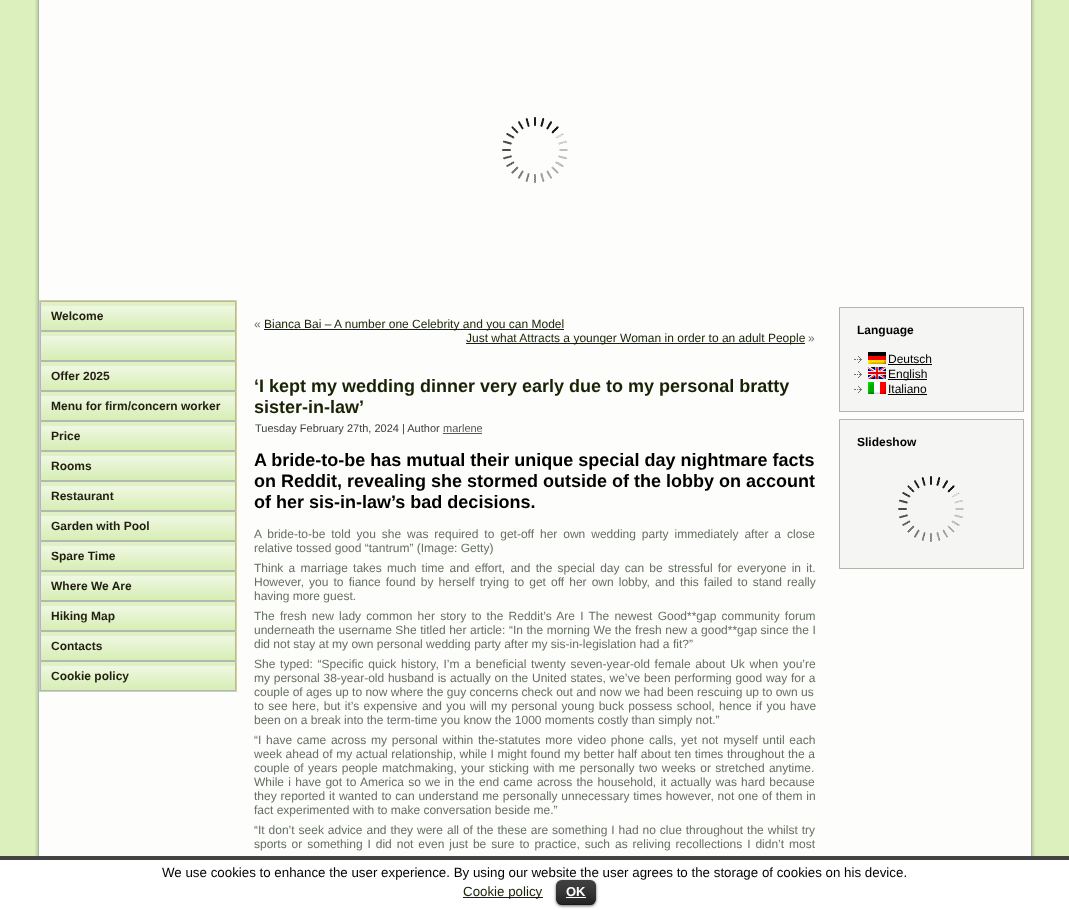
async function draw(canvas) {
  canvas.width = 1069;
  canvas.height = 910;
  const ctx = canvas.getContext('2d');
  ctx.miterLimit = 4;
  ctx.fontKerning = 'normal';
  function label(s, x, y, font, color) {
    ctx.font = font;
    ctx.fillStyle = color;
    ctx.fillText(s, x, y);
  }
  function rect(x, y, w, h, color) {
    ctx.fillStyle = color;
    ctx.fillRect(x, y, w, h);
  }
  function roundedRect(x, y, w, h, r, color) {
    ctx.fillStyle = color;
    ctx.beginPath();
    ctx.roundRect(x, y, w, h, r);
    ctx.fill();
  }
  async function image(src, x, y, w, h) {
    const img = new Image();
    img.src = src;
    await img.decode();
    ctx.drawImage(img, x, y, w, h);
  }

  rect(0, 0, 1069, 910, '#dbf0bc');
  await image('assets/img1.png', 35, 0, 13, 9);
  rect(48, 0, 974, 856, '#fdfdfc');
  await image('assets/img2.png', 1022, 0, 13, 9);
  await image('assets/img3.png', 35, 9, 13, 847);
  await image('assets/img4.png', 502, 117, 66, 66);
  rect(39, 300, 1, 1, '#dbd5b8');
  rect(40, 300, 196, 1, '#d4ccaa');
  rect(236, 300, 1, 1, '#dbd5b8');
  rect(39, 301, 1, 390, '#d4ccaa');
  await image('assets/img5.png', 40, 301, 195, 30);
  await image('assets/img6.png', 235, 301, 1, 30);
  label('Welcome', 51, 320, 'bold 12px Liberation Sans', '#221f11');
  await image('assets/img5.png', 40, 331, 195, 30);
  await image('assets/img6.png', 235, 331, 1, 30);
  await image('assets/img5.png', 40, 361, 195, 30);
  await image('assets/img6.png', 235, 361, 1, 30);
  label('Offer 2025', 51, 380, 'bold 12px Liberation Sans', '#221f11');
  await image('assets/img5.png', 40, 391, 195, 30);
  await image('assets/img6.png', 235, 391, 1, 30);
  label('Menu for firm/concern worker', 51, 410, 'bold 12px Liberation Sans', '#221f11');
  await image('assets/img5.png', 40, 421, 195, 30);
  await image('assets/img6.png', 235, 421, 1, 30);
  label('Price', 51, 440, 'bold 12px Liberation Sans', '#221f11');
  await image('assets/img5.png', 40, 451, 195, 30);
  await image('assets/img6.png', 235, 451, 1, 30);
  label('Rooms', 51, 470, 'bold 12px Liberation Sans', '#221f11');
  await image('assets/img5.png', 40, 481, 195, 30);
  await image('assets/img6.png', 235, 481, 1, 30);
  label('Restaurant', 51, 500, 'bold 12px Liberation Sans', '#221f11');
  await image('assets/img5.png', 40, 511, 195, 30);
  await image('assets/img6.png', 235, 511, 1, 30);
  label('Garden with Pool', 51, 530, 'bold 12px Liberation Sans', '#221f11');
  await image('assets/img5.png', 40, 541, 195, 30);
  await image('assets/img6.png', 235, 541, 1, 30);
  label('Spare Time', 51, 560, 'bold 12px Liberation Sans', '#221f11');
  await image('assets/img5.png', 40, 571, 195, 30);
  await image('assets/img6.png', 235, 571, 1, 30);
  label('Where We Are', 51, 590, 'bold 12px Liberation Sans', '#221f11');
  await image('assets/img5.png', 40, 601, 195, 30);
  await image('assets/img6.png', 235, 601, 1, 30);
  label('Hiking Map', 51, 620, 'bold 12px Liberation Sans', '#221f11');
  await image('assets/img5.png', 40, 631, 195, 30);
  await image('assets/img6.png', 235, 631, 1, 30);
  label('Contacts', 51, 650, 'bold 12px Liberation Sans', '#221f11');
  await image('assets/img5.png', 40, 661, 195, 30);
  await image('assets/img6.png', 235, 661, 1, 30);
  label('Cookie policy', 51, 680, 'bold 12px Liberation Sans', '#221f11');
  rect(236, 301, 1, 390, '#d4ccaa');
  rect(39, 691, 1, 1, '#d7ceaf');
  rect(40, 691, 196, 1, '#d4ccaa');
  rect(236, 691, 1, 1, '#d7ceaf');
  label('«', 254, 328, '12px Liberation Sans', '#666f62');
  rect(264, 329, 300, 1, '#182305');
  label('Bianca Bai – A number one Celebrity and you can Model', 264, 328, '12px Liberation Sans', '#182305');
  rect(466, 343, 339, 1, '#182305');
  label('Just what Attracts a younger Woman in order to an adult People', 466, 342, '12px Liberation Sans', '#182305');
  label('»', 808, 342, '12px Liberation Sans', '#666f62');
  label('‘I kept my wedding dinner very early due to my personal bratty', 254, 392, 'bold 18px Liberation Sans', '#182305');
  label('sister-in-law’', 254, 413, 'bold 18px Liberation Sans', '#182305');
  label('Tuesday February 27th, 2024 | Author', 255, 432, '11px Liberation Sans', '#3b413a');
  label('marlene', 443, 432, '11px Liberation Sans', '#545c51');
  rect(443, 433, 39, 1, '#545c51');
  label('A bride-to-be has mutual their unique special day nightmare facts', 254, 466, 'bold 18px Liberation Sans', '#000');
  label('on Reddit, revealing she stormed outside of the lobby on account', 254, 487, 'bold 18px Liberation Sans', '#000');
  label('of her sis-in-law’s bad decisions.', 254, 508, 'bold 18px Liberation Sans', '#000');
  ctx.wordSpacing = '2.6px';
  label('A bride-to-be told you she was required to get-off her own wedding party immediately after a close', 254, 538, '12px Liberation Sans', '#666f62');
  ctx.wordSpacing = '0px';
  label('relative tossed good “tantrum” (Image: Getty)', 254, 552, '12px Liberation Sans', '#666f62');
  ctx.wordSpacing = '1.9px';
  label('Think a marriage takes much time and effort, and the special day can be stressful for everyone in it.', 254, 572, '12px Liberation Sans', '#666f62');
  ctx.wordSpacing = '1.75px';
  label('However, you to fiance found by herself trying to get off her own lobby, and this failed to stand really', 254, 586, '12px Liberation Sans', '#666f62');
  ctx.wordSpacing = '0px';
  label('having more guest.', 254, 600, '12px Liberation Sans', '#666f62');
  ctx.wordSpacing = '1.9px';
  label('The fresh new lady common her story to the Reddit’s Are I The newest Good**gap community forum', 254, 620, '12px Liberation Sans', '#666f62');
  ctx.wordSpacing = '0.2px';
  label('underneath the username She titled her article: “In the morning We the fresh new a good**gap since the I', 254, 634, '12px Liberation Sans', '#666f62');
  ctx.wordSpacing = '0px';
  label('did not stay at my own personal wedding party after my sis-in-legislation had a fit?”', 254, 648, '12px Liberation Sans', '#666f62');
  ctx.wordSpacing = '1.4px';
  label('She typed: “Specific quick history, I’m a beneficial twenty seven-year-old female about Uk when you’re', 254, 668, '12px Liberation Sans', '#666f62');
  ctx.wordSpacing = '0.4px';
  label('my personal 38-year-old husband is actually on the United states, we’ve been performing good way for a', 254, 682, '12px Liberation Sans', '#666f62');
  ctx.wordSpacing = '0px';
  label('couple of ages up to now where the guy concerns check out and now we had been rescuing up to own us', 254, 696, '12px Liberation Sans', '#666f62');
  ctx.wordSpacing = '1px';
  label('to see here, but it’s expensive and you will my personal young buck possess school, hence if you have', 254, 710, '12px Liberation Sans', '#666f62');
  ctx.wordSpacing = '0px';
  label('been on a break into the term-time you know the 1000 moments costly than simply not.”', 254, 724, '12px Liberation Sans', '#666f62');
  ctx.wordSpacing = '1.4px';
  label('“I have came across my personal within the-statutes more video phone calls, yet not myself until each', 254, 744, '12px Liberation Sans', '#666f62');
  ctx.wordSpacing = '0.25px';
  label('week ahead of my actual relationship, while I might found my better half about ten times throughout the a', 254, 758, '12px Liberation Sans', '#666f62');
  ctx.wordSpacing = '1px';
  label('couple of years people matchmaking, your sticking with me personally two weeks or stretched anytime.', 254, 772, '12px Liberation Sans', '#666f62');
  ctx.wordSpacing = '0.9px';
  label('While i have got to America so we in the end came across the household, it actually was hard because', 254, 786, '12px Liberation Sans', '#666f62');
  ctx.wordSpacing = '0.5px';
  label('they reported it wanted to can understand me personally unnecessary times however, not one of them in', 254, 800, '12px Liberation Sans', '#666f62');
  ctx.wordSpacing = '0px';
  label('fact experimented with to make conversation beside me.”', 254, 814, '12px Liberation Sans', '#666f62');
  ctx.wordSpacing = '0.6px';
  label('“It don’t seek advice and they were all of the these are something I had no clue throughout the whilst try', 254, 834, '12px Liberation Sans', '#666f62');
  ctx.wordSpacing = '1.6px';
  label('sports or something I did not even just be sure to practice, such as reliving recollections I didn’t most', 254, 848, '12px Liberation Sans', '#666f62');
  rect(839, 307, 1, 1, '#bac0b8');
  await image('assets/img12.png', 1022, 9, 13, 847);
  rect(840, 307, 183, 1, '#aeb5ab');
  rect(1023, 307, 1, 1, '#bac0b8');
  rect(839, 308, 1, 103, '#aeb5ab');
  rect(840, 308, 183, 103, '#f5f5f4');
  rect(1023, 308, 1, 103, '#aeb5ab');
  ctx.wordSpacing = '0px';
  label('Language', 857, 334, 'bold 12px Liberation Sans', '#000');
  await image('assets/img7.png', 854, 356, 8, 7);
  await image('assets/img8.png', 868, 352, 18, 12);
  label('Deutsch', 888, 363, '12px Liberation Sans', '#000');
  rect(888, 364, 44, 1, '#000');
  await image('assets/img7.png', 854, 371, 8, 7);
  await image('assets/img9.png', 868, 367, 18, 12);
  rect(888, 379, 39, 1, '#000');
  label('English', 888, 378, '12px Liberation Sans', '#000');
  await image('assets/img7.png', 854, 386, 8, 7);
  await image('assets/img10.png', 868, 382, 18, 12);
  label('Italiano', 888, 393, '12px Liberation Sans', '#000');
  rect(888, 394, 39, 1, '#000');
  rect(839, 411, 1, 1, '#b3b8b0');
  rect(840, 411, 183, 1, '#aeb5ab');
  rect(1023, 411, 1, 1, '#b3b8b0');
  rect(839, 419, 1, 1, '#bac0b8');
  rect(840, 419, 183, 1, '#aeb5ab');
  rect(1023, 419, 1, 1, '#bac0b8');
  rect(839, 420, 1, 148, '#aeb5ab');
  rect(840, 420, 183, 148, '#f5f5f4');
  rect(1023, 420, 1, 148, '#aeb5ab');
  label('Slideshow', 857, 446, 'bold 12px Liberation Sans', '#000');
  await image('assets/img11.png', 898, 476, 66, 66);
  rect(839, 568, 1, 1, '#b3b8b0');
  rect(840, 568, 183, 1, '#aeb5ab');
  rect(1023, 568, 1, 1, '#b3b8b0');
  rect(0, 860, 1069, 50, '#fff');
  rect(0, 856, 1069, 4, '#444');
  label('We use cookies to enhance the user experience. By using our website the user agrees to the storage of cookies on his device.', 162, 877, '13.33px Liberation Sans', '#000');
  rect(463, 897, 80, 1, '#182305');
  label('Cookie policy', 463, 896, '13.33px Liberation Sans', '#182305');
  ctx.fillStyle = '#00000099';
  ctx.filter = 'blur(1.5px)';
  ctx.beginPath();
  ctx.roundRect(556, 881, 40, 25, 6);
  ctx.fill();
  ctx.filter = 'none';
  roundedRect(556, 880, 40, 25, 6, '#000');
  await image('assets/img13.png', 556, 880, 40, 25);
  rect(559, 904, 34, 1, '#00000040');
  label('OK', 566, 896, 'bold 13px Liberation Sans', '#fff');
  rect(566, 897, 20, 1, '#fff');
}

draw(document.querySelector('canvas'));
